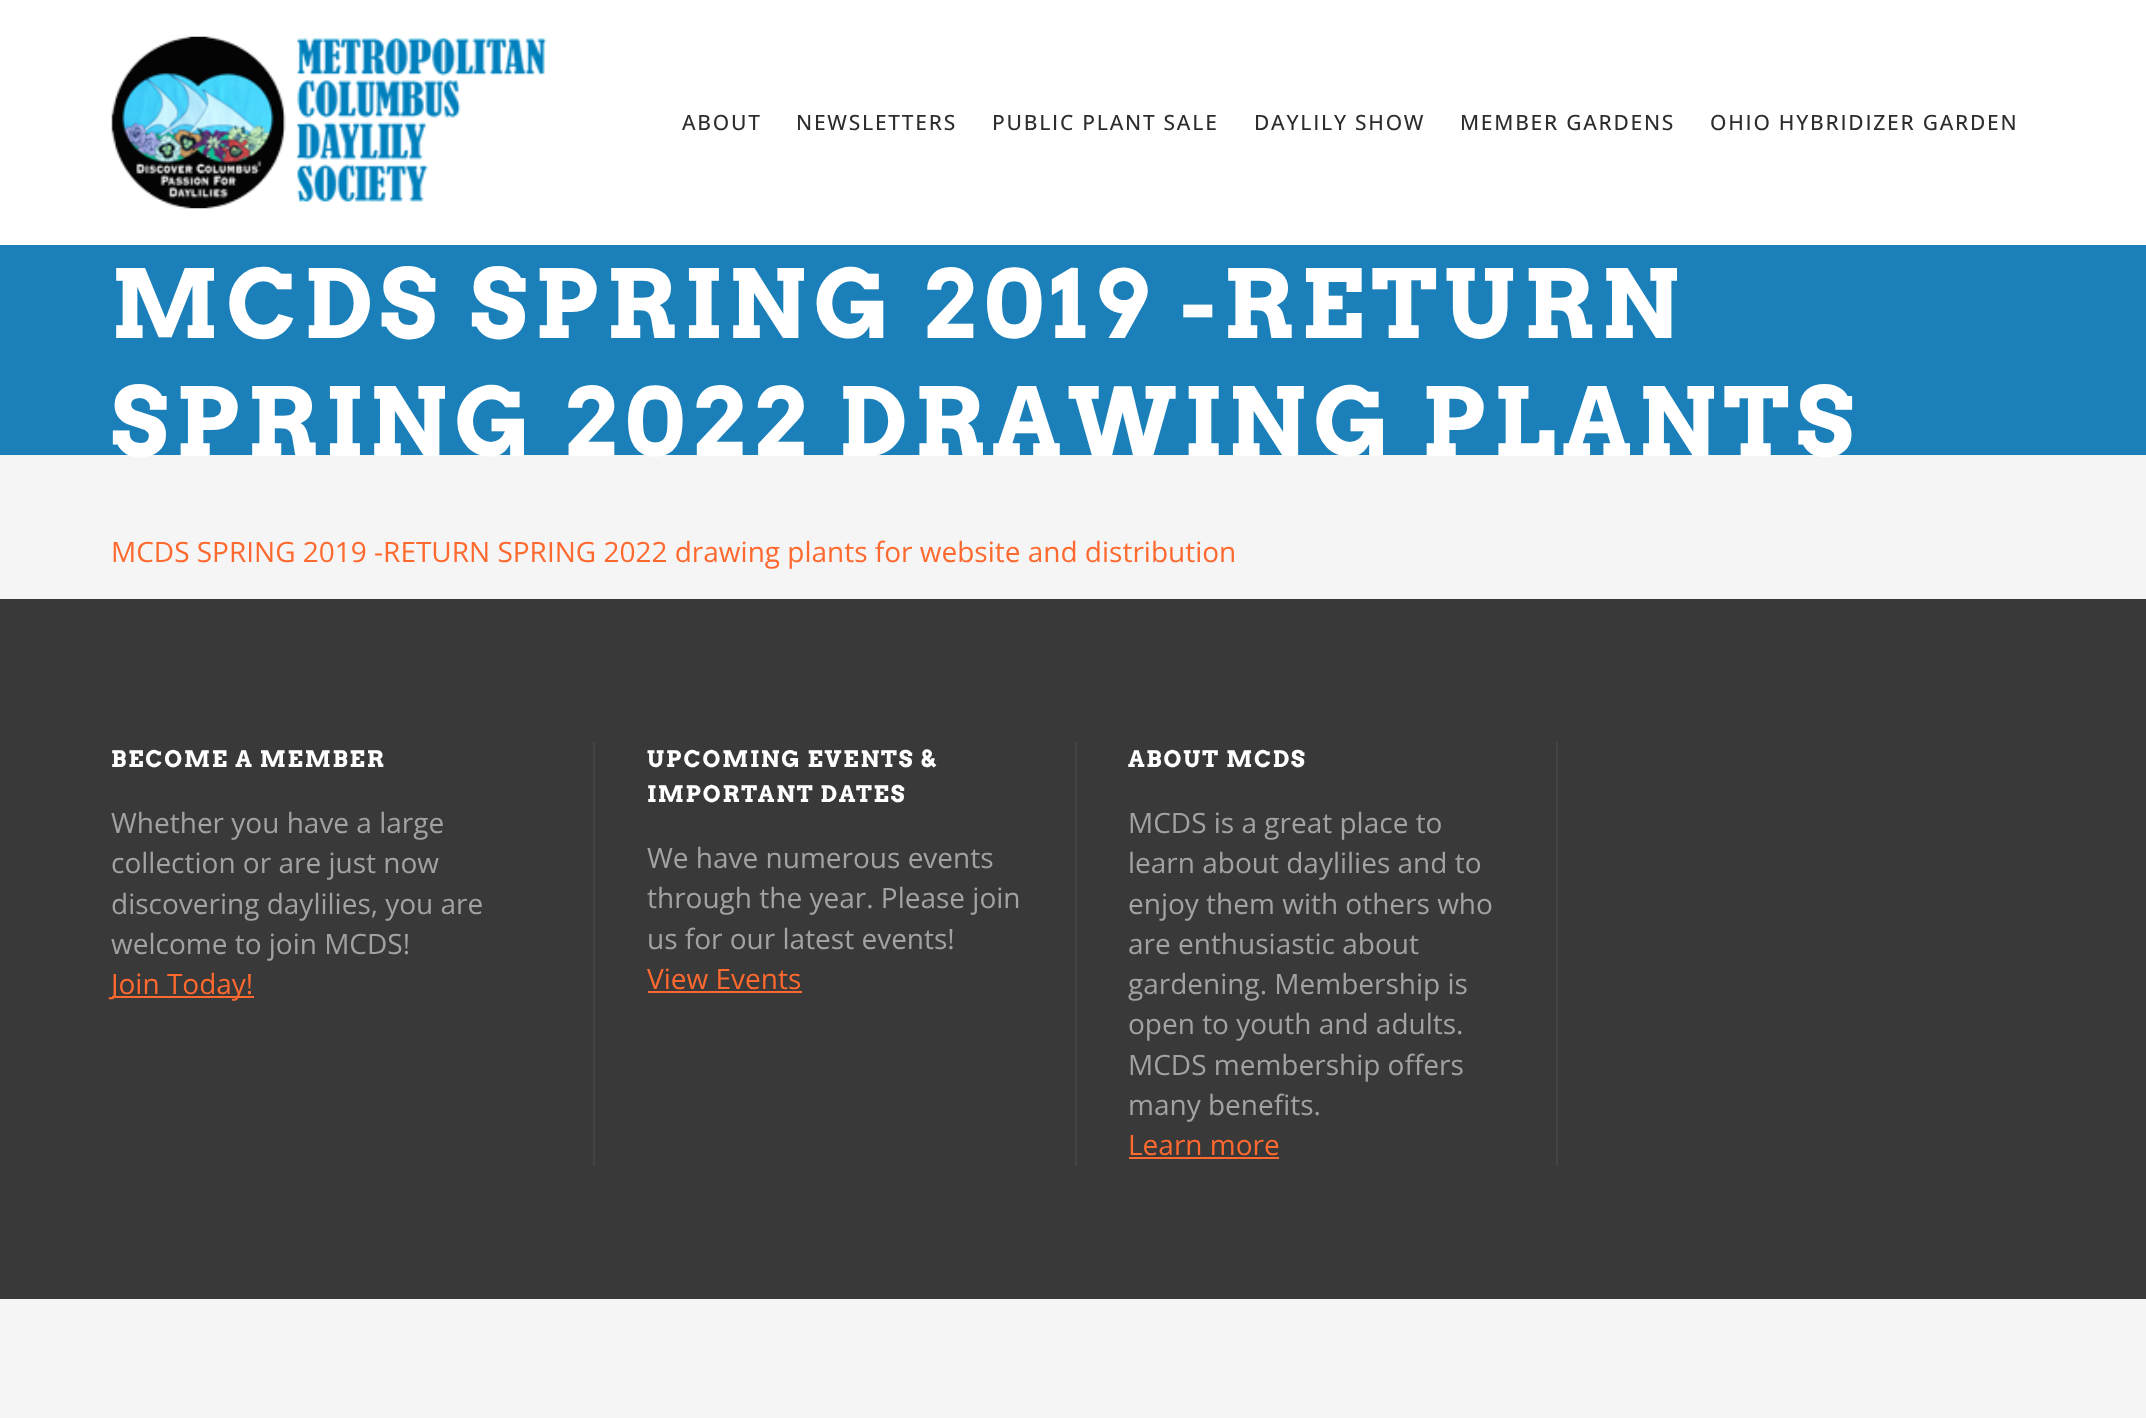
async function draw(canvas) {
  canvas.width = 2146;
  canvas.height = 1418;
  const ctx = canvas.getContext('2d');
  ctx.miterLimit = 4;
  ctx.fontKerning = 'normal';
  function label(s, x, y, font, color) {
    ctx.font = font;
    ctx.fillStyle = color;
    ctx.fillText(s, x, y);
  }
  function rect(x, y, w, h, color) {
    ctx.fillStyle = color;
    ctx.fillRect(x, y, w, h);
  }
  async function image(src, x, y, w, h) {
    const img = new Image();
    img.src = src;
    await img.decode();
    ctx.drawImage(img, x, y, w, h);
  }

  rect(0, 0, 2146, 1418, '#f5f5f5');
  rect(0, 0, 2146, 245, '#fff');
  await image('assets/img1.png', 111, 36, 436, 173);
  ctx.letterSpacing = '1.75px';
  label('ABOUT', 682, 130, '500 21px Open Sans', '#2d2d2d');
  label('NEWSLETTERS', 796, 130, '500 21px Open Sans', '#2d2d2d');
  label('PUBLIC PLANT SALE', 992, 130, '500 21px Open Sans', '#2d2d2d');
  label('DAYLILY SHOW', 1254, 130, '500 21px Open Sans', '#2d2d2d');
  label('MEMBER GARDENS', 1460, 130, '500 21px Open Sans', '#2d2d2d');
  label('OHIO HYBRIDIZER GARDEN', 1710, 130, '500 21px Open Sans', '#2d2d2d');
  rect(0, 245, 2146, 210, '#1b80ba');
  ctx.letterSpacing = '7px';
  label('MCDS SPRING 2019 -RETURN', 111, 338, 'bold 94.5px Arvo', '#fff');
  label('SPRING 2022 DRAWING PLANTS', 111, 456, 'bold 94.5px Arvo', '#fff');
  ctx.letterSpacing = '0px';
  label('MCDS SPRING 2019 -RETURN SPRING 2022 drawing plants for website and distribution', 111, 562, '28px Open Sans', '#fe692f');
  rect(0, 599, 2146, 700, '#393939');
  ctx.letterSpacing = '1.75px';
  label('BECOME A MEMBER', 111, 767, 'bold 22.75px Arvo', '#fff');
  ctx.letterSpacing = '0px';
  label('Whether you have a large', 111, 833, '28px Open Sans', '#a2a2a2');
  label('collection or are just now', 111, 873, '28px Open Sans', '#a2a2a2');
  label('discovering daylilies, you are', 111, 914, '28px Open Sans', '#a2a2a2');
  label('welcome to join MCDS!', 111, 954, '28px Open Sans', '#a2a2a2');
  rect(112, 996, 142, 2, '#fe692f');
  label('Join Today!', 111, 994, '28px Open Sans', '#fe692f');
  rect(593, 742, 2, 424, '#444');
  ctx.letterSpacing = '1.75px';
  label('UPCOMING EVENTS &', 647, 767, 'bold 22.75px Arvo', '#fff');
  label('IMPORTANT DATES', 647, 802, 'bold 22.75px Arvo', '#fff');
  ctx.letterSpacing = '0px';
  label('We have numerous events', 647, 868, '28px Open Sans', '#a2a2a2');
  label('through the year. Please join', 647, 908, '28px Open Sans', '#a2a2a2');
  label('us for our latest events!', 647, 949, '28px Open Sans', '#a2a2a2');
  label('View Events', 647, 989, '28px Open Sans', '#fe692f');
  rect(648, 991, 154, 2, '#fe692f');
  rect(1075, 742, 2, 424, '#444');
  ctx.letterSpacing = '1.75px';
  label('ABOUT MCDS', 1128, 767, 'bold 22.75px Arvo', '#fff');
  ctx.letterSpacing = '0px';
  label('MCDS is a great place to', 1128, 833, '28px Open Sans', '#a2a2a2');
  label('learn about daylilies and to', 1128, 873, '28px Open Sans', '#a2a2a2');
  label('enjoy them with others who', 1128, 914, '28px Open Sans', '#a2a2a2');
  label('are enthusiastic about', 1128, 954, '28px Open Sans', '#a2a2a2');
  label('gardening. Membership is', 1128, 994, '28px Open Sans', '#a2a2a2');
  label('open to youth and adults.', 1128, 1034, '28px Open Sans', '#a2a2a2');
  label('MCDS membership offers', 1128, 1075, '28px Open Sans', '#a2a2a2');
  label('many benefits.', 1128, 1115, '28px Open Sans', '#a2a2a2');
  label('Learn more', 1128, 1155, '28px Open Sans', '#fe692f');
  rect(1129, 1157, 150, 2, '#fe692f');
  rect(1556, 742, 2, 424, '#444');
}

draw(document.querySelector('canvas'));
